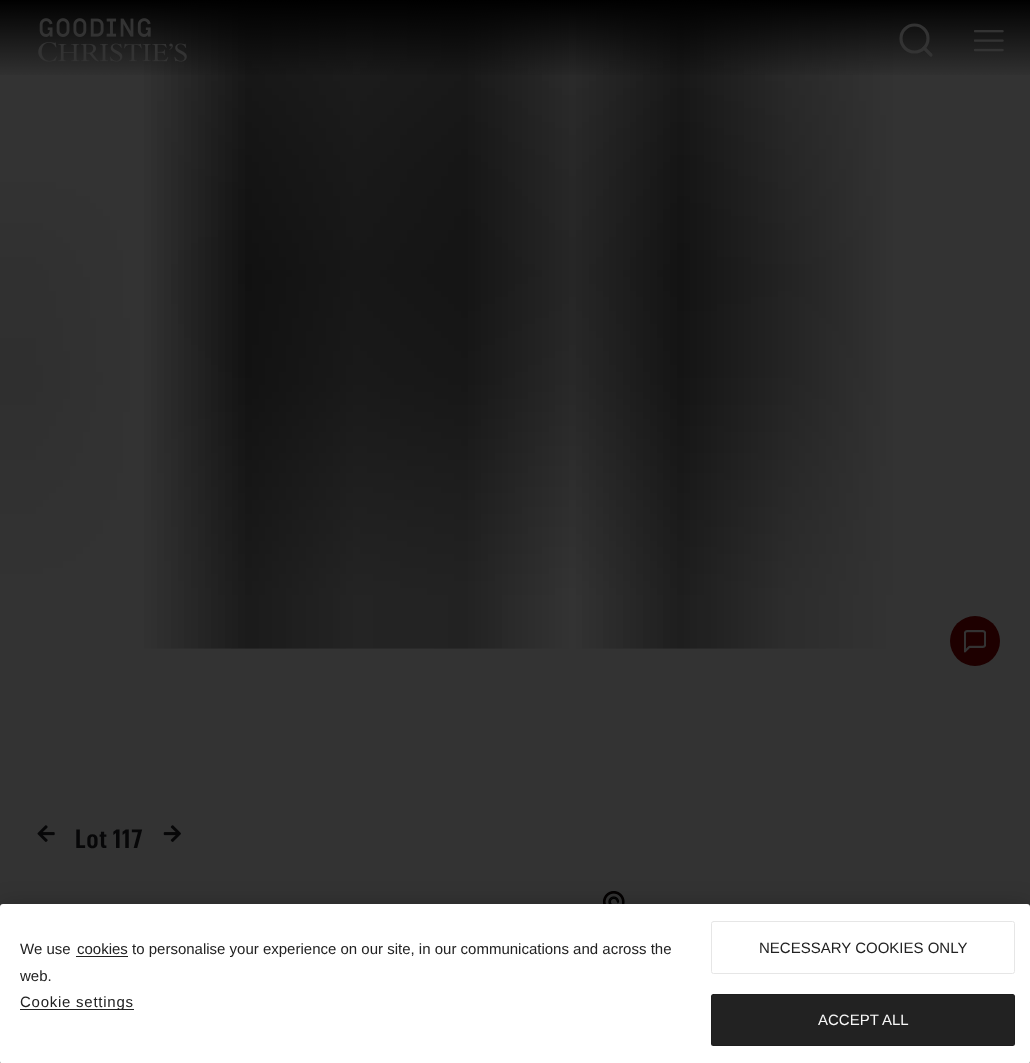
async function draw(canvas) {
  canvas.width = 1030;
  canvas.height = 1063;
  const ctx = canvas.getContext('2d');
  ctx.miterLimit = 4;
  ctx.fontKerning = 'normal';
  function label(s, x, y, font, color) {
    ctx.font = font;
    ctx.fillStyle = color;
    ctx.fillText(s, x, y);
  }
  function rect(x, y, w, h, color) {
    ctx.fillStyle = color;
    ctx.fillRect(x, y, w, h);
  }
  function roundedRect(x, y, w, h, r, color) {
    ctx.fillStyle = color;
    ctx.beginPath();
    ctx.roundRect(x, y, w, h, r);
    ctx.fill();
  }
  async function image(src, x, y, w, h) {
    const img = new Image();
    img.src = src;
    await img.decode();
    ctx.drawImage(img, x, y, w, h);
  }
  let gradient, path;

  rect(0, 0, 1030, 1063, '#333');
  await image('assets/img3.png', 0, 0, 893, 649);
  gradient = ctx.createLinearGradient(515, 0, 515, 79);
  gradient.addColorStop(0, '#000');
  gradient.addColorStop(1, '#00000000');
  ctx.fillStyle = gradient;
  ctx.fillRect(0, 0, 1030, 75);
  await image('assets/img1.png', 38, 18, 149, 44);
  ctx.beginPath();
  ctx.arc(914.5, 38.5, 13.5, 0, 2 * Math.PI);
  ctx.strokeStyle = '#333';
  ctx.lineWidth = 3.2;
  ctx.stroke();
  path = new Path2D('M931 55L924 48');
  ctx.lineCap = 'round';
  ctx.lineJoin = 'round';
  ctx.stroke(path);
  await image('assets/img2.png', 974, 30, 30, 22);
  ctx.fillStyle = '#1e0000';
  ctx.beginPath();
  ctx.arc(975, 641, 25, 0, 2 * Math.PI);
  ctx.fill();
  await image('assets/img4.png', 964, 630, 22, 23);
  await image('assets/img5.png', 37, 825, 18, 17);
  ctx.letterSpacing = '1px';
  label('Lot 117', 75, 848, '600 26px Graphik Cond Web', '#070708');
  await image('assets/img6.png', 163, 825, 18, 17);
  await image('assets/img7.png', 603, 891, 22, 13);
  ctx.fillStyle = '#00000033';
  ctx.filter = 'blur(11px)';
  ctx.beginPath();
  ctx.roundRect(0, 904, 1030, 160, 3);
  ctx.fill();
  ctx.filter = 'none';
  roundedRect(0, 904, 1030, 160, 3, '#fff');
  ctx.letterSpacing = '0px';
  label('We use', 20, 954, '15px Liberation Sans', '#222');
  rect(76, 956, 52, 1, '#222');
  label('cookies to personalise your experience on our site, in our communications and across the', 77, 954, '15px Liberation Sans', '#222');
  label('web.', 20, 981, '15px Liberation Sans', '#222');
  rect(20, 1009, 114, 1, '#222');
  ctx.letterSpacing = '0.75px';
  label('Cookie settings', 20, 1007, '15px Liberation Sans', '#222');
  ctx.beginPath();
  ctx.roundRect(711.5, 921.5, 303, 52, 2);
  ctx.strokeStyle = '#e6e6e6';
  ctx.lineWidth = 1;
  ctx.lineJoin = 'miter';
  ctx.stroke();
  ctx.letterSpacing = '0px';
  label('NECESSARY COOKIES ONLY', 759, 953, '15px Liberation Sans', '#222');
  roundedRect(711, 994, 304, 52, 2.5, '#222');
  ctx.beginPath();
  ctx.roundRect(711.5, 994.5, 303, 51, 2);
  ctx.strokeStyle = '#0000001a';
  ctx.stroke();
  label('ACCEPT ALL', 818, 1025, '15px Liberation Sans', '#f7f7f7');
}

draw(document.querySelector('canvas'));
